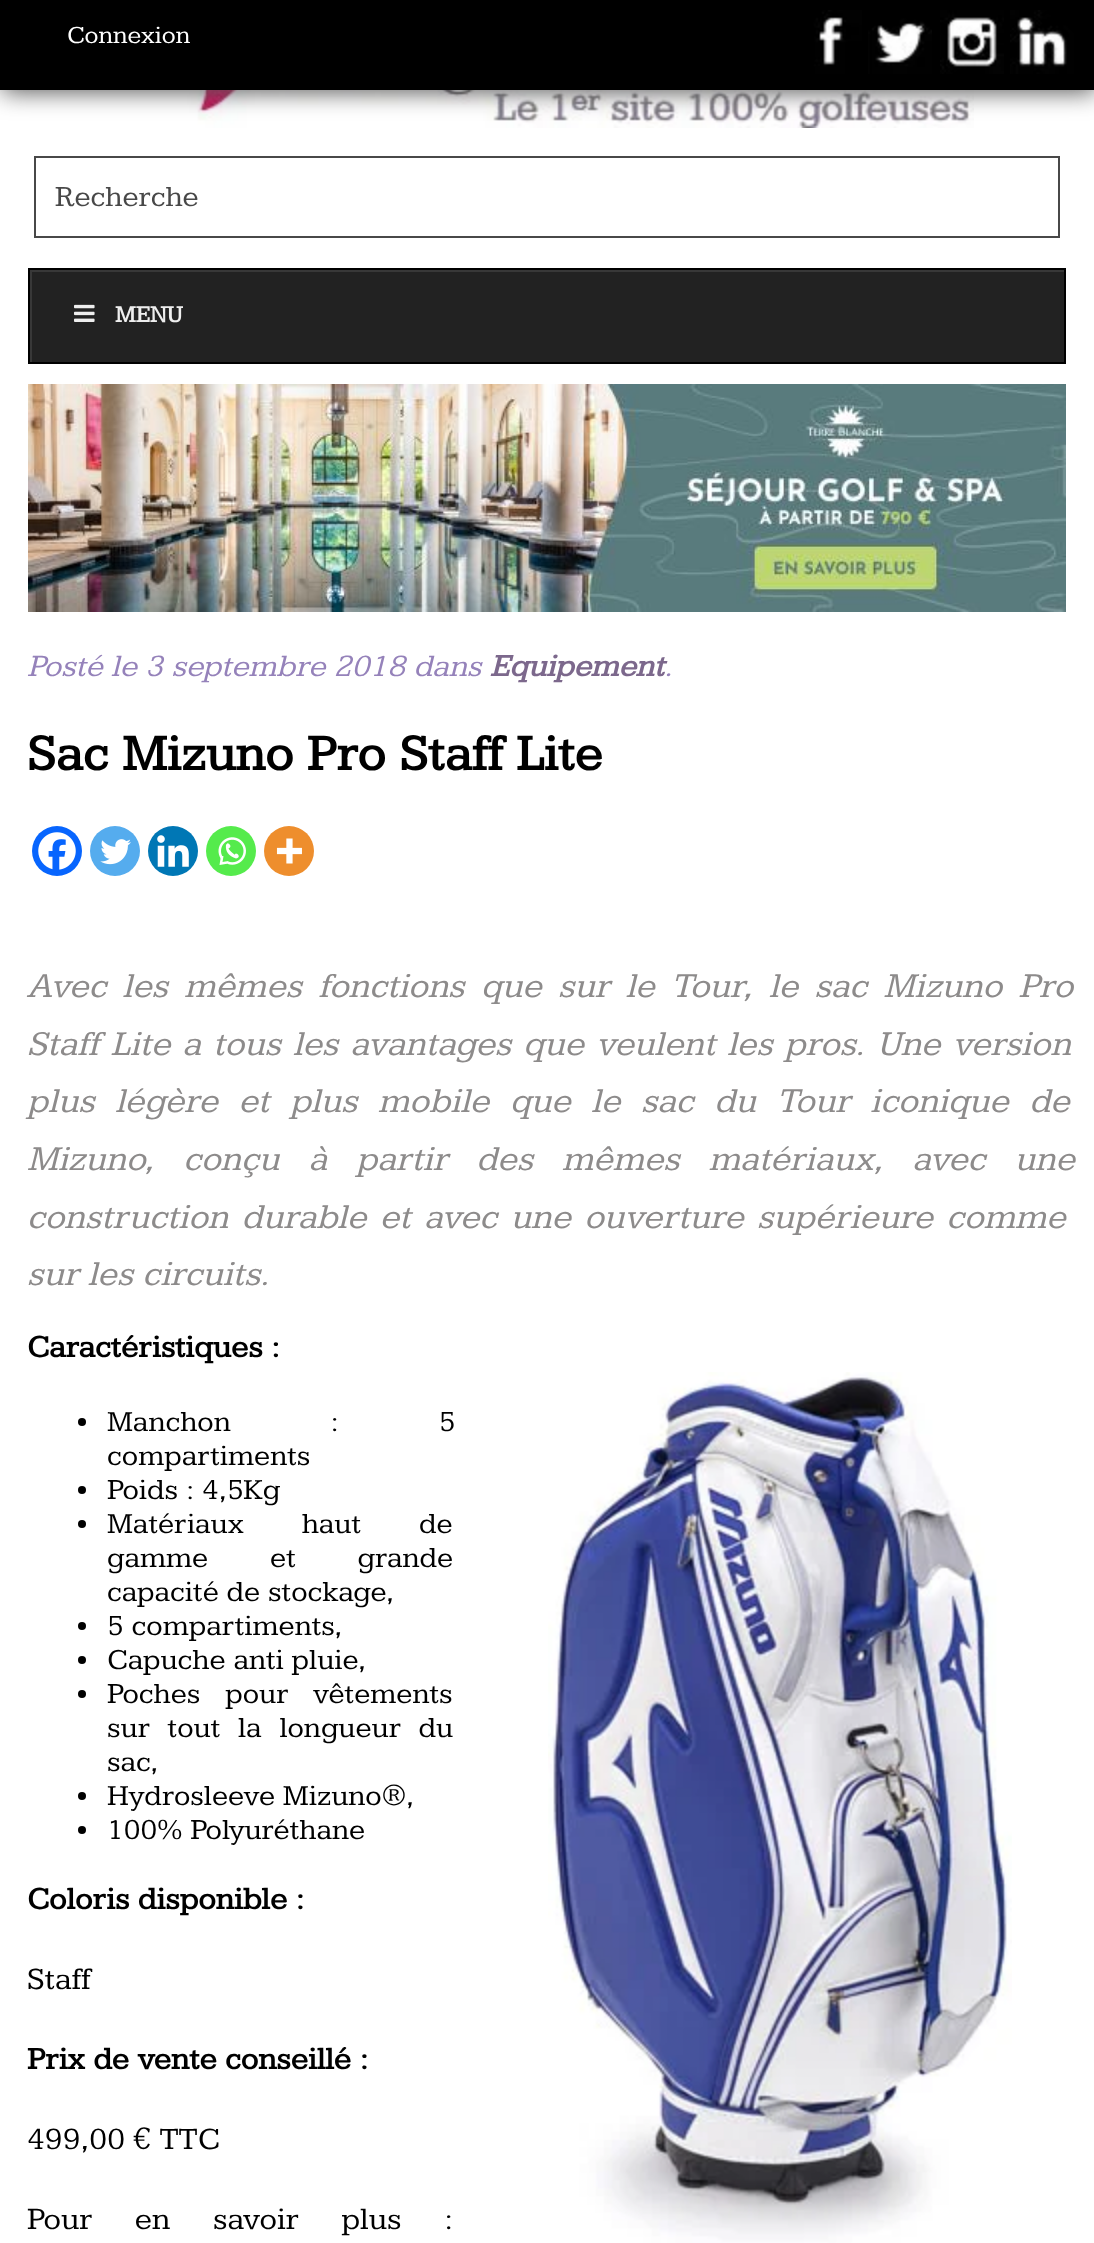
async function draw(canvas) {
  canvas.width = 1094;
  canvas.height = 2243;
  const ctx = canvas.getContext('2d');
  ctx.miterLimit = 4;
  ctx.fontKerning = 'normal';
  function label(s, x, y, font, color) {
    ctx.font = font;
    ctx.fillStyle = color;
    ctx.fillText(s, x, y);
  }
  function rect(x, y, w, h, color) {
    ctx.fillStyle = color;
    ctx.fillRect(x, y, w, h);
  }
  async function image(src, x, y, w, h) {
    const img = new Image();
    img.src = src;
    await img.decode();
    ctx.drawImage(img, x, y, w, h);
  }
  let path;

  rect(0, 0, 1094, 2243, '#fff');
  await image('assets/img5.png', 118, 90, 856, 38);
  ctx.fillStyle = '#555';
  ctx.filter = 'blur(12px)';
  ctx.beginPath();
  ctx.rect(2, 2, 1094, 90);
  ctx.fill();
  ctx.filter = 'none';
  rect(0, 0, 1094, 90, '#000');
  label('Connexion', 67, 43, '25.5px Kameron', '#fff');
  await image('assets/img1.png', 798, 10, 64, 64);
  await image('assets/img2.png', 868, 10, 64, 64);
  await image('assets/img3.png', 940, 10, 64, 64);
  await image('assets/img4.png', 1010, 10, 64, 64);
  ctx.strokeStyle = '#484848';
  ctx.lineWidth = 2;
  ctx.strokeRect(35, 157, 1024, 80);
  label('Recherche', 55, 206, '30px Kameron', '#484848');
  rect(32, 272, 1032, 90, '#222');
  ctx.save();
  ctx.beginPath();
  ctx.rect(30, 270, 1034, 92);
  ctx.clip();
  ctx.fillStyle = '#383838';
  path = new Path2D('M-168 72H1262V560H-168ZM32 272H1066V364H32Z');
  ctx.fill(path, 'evenodd');
  ctx.restore();
  ctx.strokeStyle = '#000';
  ctx.strokeRect(29, 269, 1036, 94);
  await image('assets/img6.png', 74, 304, 21, 18);
  label('MENU', 115, 322, 'bold 24px Kameron', '#eee');
  await image('assets/img7.png', 28, 384, 1038, 228);
  label('Posté le 3 septembre 2018 dans', 27, 676, 'italic 32px Kameron', '#9582ba');
  label('Equipement', 490, 676, 'italic bold 32px Kameron', '#7c688c');
  label('.', 664, 676, 'italic 32px Kameron', '#9582ba');
  label('Sac Mizuno Pro Staff Lite', 27, 770, 'bold 52px Kameron', '#000');
  ctx.fillStyle = '#0765fe';
  ctx.beginPath();
  ctx.arc(57, 851, 25, 0, 2 * Math.PI);
  ctx.fill();
  await image('assets/img8.png', 38, 832, 38, 38);
  ctx.fillStyle = '#55acee';
  ctx.beginPath();
  ctx.arc(115, 851, 25, 0, 2 * Math.PI);
  ctx.fill();
  await image('assets/img9.png', 100, 839, 31, 26);
  ctx.fillStyle = '#0077b5';
  ctx.beginPath();
  ctx.arc(173, 851, 25, 0, 2 * Math.PI);
  ctx.fill();
  await image('assets/img10.png', 157, 835, 32, 32);
  ctx.fillStyle = '#55eb4c';
  ctx.beginPath();
  ctx.arc(231, 851, 25, 0, 2 * Math.PI);
  ctx.fill();
  await image('assets/img11.png', 218, 837, 28, 28);
  ctx.fillStyle = '#ee8e2d';
  ctx.beginPath();
  ctx.arc(289, 851, 25, 0, 2 * Math.PI);
  ctx.fill();
  await image('assets/img12.png', 276, 838, 26, 26);
  ctx.wordSpacing = '7px';
  label('Avec les mêmes fonctions que sur le Tour, le sac Mizuno Pro', 27, 997, 'italic 36px Kameron', '#8d8b8b');
  ctx.wordSpacing = '2.6px';
  label('Staff Lite a tous les avantages que veulent les pros. Une version', 27, 1055, 'italic 36px Kameron', '#8d8b8b');
  ctx.wordSpacing = '11.25px';
  label('plus légère et plus mobile que le sac du Tour iconique de', 27, 1112, 'italic 36px Kameron', '#8d8b8b');
  ctx.wordSpacing = '19.75px';
  label('Mizuno, conçu à partir des mêmes matériaux, avec une', 27, 1170, 'italic 36px Kameron', '#8d8b8b');
  ctx.wordSpacing = '4px';
  label('construction durable et avec une ouverture supérieure comme', 27, 1228, 'italic 36px Kameron', '#8d8b8b');
  ctx.wordSpacing = '0px';
  label('sur les circuits.', 27, 1285, 'italic 36px Kameron', '#8d8b8b');
  label('Caractéristiques :', 27, 1357, 'bold 32px Kameron', '#000');
  await image('assets/img13.png', 548, 1372, 464, 871);
  ctx.beginPath();
  ctx.arc(82, 1422, 4, 0, 2 * Math.PI);
  ctx.fill();
  ctx.wordSpacing = '92px';
  label('Manchon : 5', 107, 1431, '30px Kameron', '#000');
  ctx.wordSpacing = '0px';
  label('compartiments', 107, 1465, '30px Kameron', '#000');
  ctx.beginPath();
  ctx.arc(82, 1490, 4, 0, 2 * Math.PI);
  ctx.fill();
  label('Poids : 4,5Kg', 107, 1499, '30px Kameron', '#000');
  ctx.beginPath();
  ctx.arc(82, 1524, 4, 0, 2 * Math.PI);
  ctx.fill();
  ctx.wordSpacing = '50px';
  label('Matériaux haut de', 107, 1533, '30px Kameron', '#000');
  ctx.wordSpacing = '54px';
  label('gamme et grande', 107, 1567, '30px Kameron', '#000');
  ctx.wordSpacing = '0px';
  label('capacité de stockage,', 107, 1601, '30px Kameron', '#000');
  ctx.beginPath();
  ctx.arc(82, 1626, 4, 0, 2 * Math.PI);
  ctx.fill();
  label('5 compartiments,', 107, 1635, '30px Kameron', '#000');
  ctx.beginPath();
  ctx.arc(82, 1660, 4, 0, 2 * Math.PI);
  ctx.fill();
  label('Capuche anti pluie,', 107, 1669, '30px Kameron', '#000');
  ctx.beginPath();
  ctx.arc(82, 1694, 4, 0, 2 * Math.PI);
  ctx.fill();
  ctx.wordSpacing = '17px';
  label('Poches pour vêtements', 107, 1703, '30px Kameron', '#000');
  ctx.wordSpacing = '10px';
  label('sur tout la longueur du', 107, 1737, '30px Kameron', '#000');
  ctx.wordSpacing = '0px';
  label('sac,', 107, 1771, '30px Kameron', '#000');
  ctx.beginPath();
  ctx.arc(82, 1796, 4, 0, 2 * Math.PI);
  ctx.fill();
  label('Hydrosleeve Mizuno®,', 107, 1805, '30px Kameron', '#000');
  ctx.beginPath();
  ctx.arc(82, 1830, 4, 0, 2 * Math.PI);
  ctx.fill();
  label('100% Polyuréthane', 107, 1839, '30px Kameron', '#000');
  label('Coloris disponible :', 27, 1909, 'bold 32px Kameron', '#000');
  label('Staff', 27, 1989, '32px Kameron', '#000');
  label('Prix de vente conseillé :', 27, 2069, 'bold 32px Kameron', '#000');
  label('499,00 € TTC', 27, 2149, '32px Kameron', '#000');
  ctx.wordSpacing = '34.5px';
  label('Pour en savoir plus :', 27, 2229, '32px Kameron', '#000');
}

draw(document.querySelector('canvas'));
